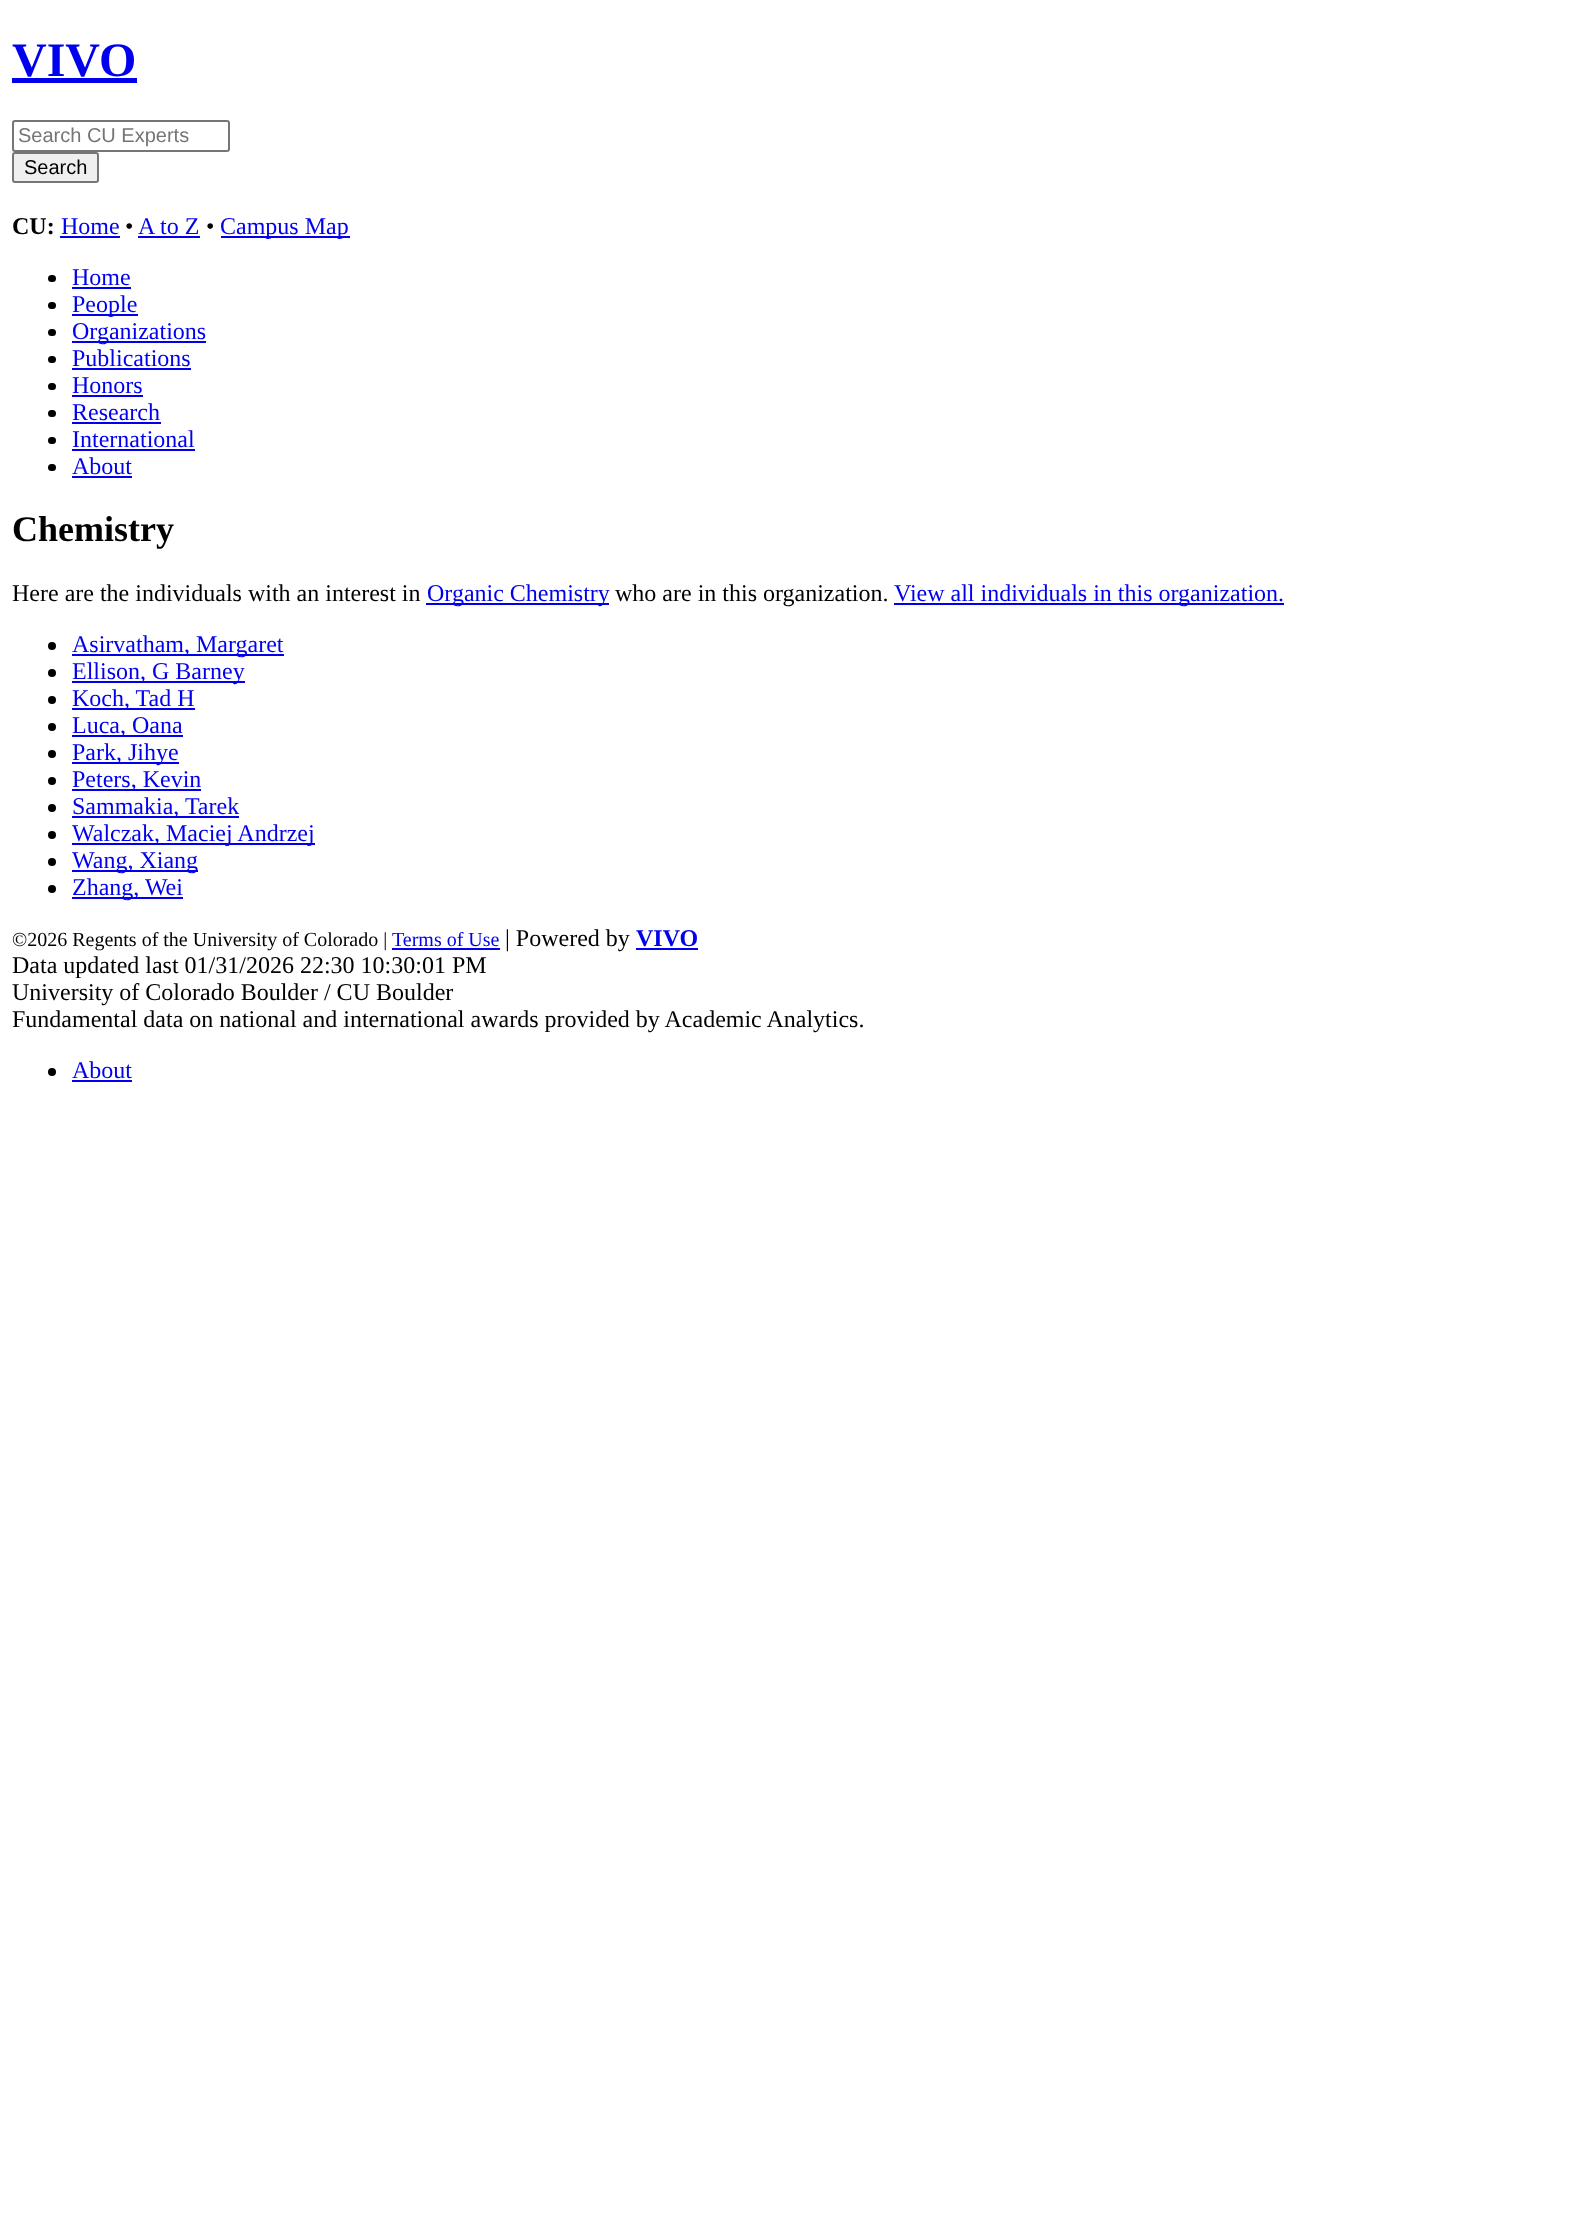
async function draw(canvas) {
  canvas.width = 1595;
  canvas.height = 2229;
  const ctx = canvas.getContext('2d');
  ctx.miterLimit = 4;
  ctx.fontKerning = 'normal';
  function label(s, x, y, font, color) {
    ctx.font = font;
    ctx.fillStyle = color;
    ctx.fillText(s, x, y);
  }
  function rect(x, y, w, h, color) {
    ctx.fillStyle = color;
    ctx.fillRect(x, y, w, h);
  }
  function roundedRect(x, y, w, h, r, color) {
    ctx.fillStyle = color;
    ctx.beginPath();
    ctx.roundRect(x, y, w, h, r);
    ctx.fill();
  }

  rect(0, 0, 1595, 2229, '#fff');
  label('VIVO', 12, 76, 'bold 48px Liberation Serif', '#00e');
  rect(12, 78, 125, 5, '#00e');
  ctx.beginPath();
  ctx.roundRect(13, 121, 216, 30, 2);
  ctx.strokeStyle = '#767676';
  ctx.lineWidth = 2;
  ctx.stroke();
  label('Search CU Experts', 18, 142, '20px Liberation Sans', '#757575');
  ctx.fillStyle = '#efefef';
  ctx.beginPath();
  ctx.roundRect(13, 153, 85, 29, 2);
  ctx.fill();
  ctx.stroke();
  label('Search', 24, 174, '20px Liberation Sans', '#000');
  label('CU:', 12, 234, 'bold 24px Liberation Serif', '#000');
  label('Home', 61, 234, '24px Liberation Serif', '#00e');
  rect(60, 236, 60, 2, '#00e');
  label('•', 125, 234, '24px Liberation Serif', '#000');
  label('A to Z', 138, 234, '24px Liberation Serif', '#00e');
  rect(138, 236, 62, 2, '#00e');
  label('•', 206, 234, '24px Liberation Serif', '#000');
  rect(221, 236, 129, 2, '#00e');
  label('Campus Map', 220, 234, '24px Liberation Serif', '#00e');
  roundedRect(48, 275, 8, 7, 3.5, '#000');
  label('Home', 72, 285, '24px Liberation Serif', '#00e');
  rect(72, 287, 59, 2, '#00e');
  roundedRect(48, 302, 8, 7, 3.5, '#000');
  rect(72, 314, 66, 2, '#00e');
  label('People', 72, 312, '24px Liberation Serif', '#00e');
  roundedRect(48, 329, 8, 7, 3.5, '#000');
  rect(72, 341, 134, 2, '#00e');
  label('Organizations', 72, 339, '24px Liberation Serif', '#00e');
  roundedRect(48, 356, 8, 7, 3.5, '#000');
  label('Publications', 72, 366, '24px Liberation Serif', '#00e');
  rect(72, 368, 119, 2, '#00e');
  roundedRect(48, 383, 8, 7, 3.5, '#000');
  label('Honors', 72, 393, '24px Liberation Serif', '#00e');
  rect(72, 395, 71, 2, '#00e');
  roundedRect(48, 410, 8, 7, 3.5, '#000');
  label('Research', 72, 420, '24px Liberation Serif', '#00e');
  rect(72, 422, 89, 2, '#00e');
  roundedRect(48, 437, 8, 7, 3.5, '#000');
  label('International', 72, 447, '24px Liberation Serif', '#00e');
  rect(72, 449, 123, 2, '#00e');
  roundedRect(48, 464, 8, 7, 3.5, '#000');
  label('About', 72, 474, '24px Liberation Serif', '#00e');
  rect(72, 476, 60, 2, '#00e');
  label('Chemistry', 12, 541, 'bold 36px Liberation Serif', '#000');
  label('Here are the individuals with an interest in', 12, 601, '24px Liberation Serif', '#000');
  rect(426, 603, 183, 2, '#00e');
  label('Organic Chemistry', 427, 601, '24px Liberation Serif', '#00e');
  label('who are in this organization.', 615, 601, '24px Liberation Serif', '#000');
  rect(894, 603, 390, 2, '#00e');
  label('View all individuals in this organization.', 894, 601, '24px Liberation Serif', '#00e');
  ctx.fillStyle = '#000';
  ctx.beginPath();
  ctx.arc(52, 646, 4, 0, 2 * Math.PI);
  ctx.fill();
  rect(72, 654, 212, 2, '#00e');
  label('Asirvatham, Margaret', 72, 652, '24px Liberation Serif', '#00e');
  ctx.fillStyle = '#000';
  ctx.beginPath();
  ctx.arc(52, 673, 4, 0, 2 * Math.PI);
  ctx.fill();
  rect(72, 681, 173, 2, '#00e');
  label('Ellison, G Barney', 72, 679, '24px Liberation Serif', '#00e');
  ctx.fillStyle = '#000';
  ctx.beginPath();
  ctx.arc(52, 700, 4, 0, 2 * Math.PI);
  ctx.fill();
  rect(72, 708, 123, 2, '#00e');
  label('Koch, Tad H', 72, 706, '24px Liberation Serif', '#00e');
  ctx.fillStyle = '#000';
  ctx.beginPath();
  ctx.arc(52, 727, 4, 0, 2 * Math.PI);
  ctx.fill();
  rect(72, 735, 111, 2, '#00e');
  label('Luca, Oana', 72, 733, '24px Liberation Serif', '#00e');
  ctx.fillStyle = '#000';
  ctx.beginPath();
  ctx.arc(52, 754, 4, 0, 2 * Math.PI);
  ctx.fill();
  rect(72, 762, 107, 2, '#00e');
  label('Park, Jihye', 72, 760, '24px Liberation Serif', '#00e');
  ctx.fillStyle = '#000';
  ctx.beginPath();
  ctx.arc(52, 781, 4, 0, 2 * Math.PI);
  ctx.fill();
  rect(72, 789, 129, 2, '#00e');
  label('Peters, Kevin', 72, 787, '24px Liberation Serif', '#00e');
  ctx.fillStyle = '#000';
  ctx.beginPath();
  ctx.arc(52, 808, 4, 0, 2 * Math.PI);
  ctx.fill();
  rect(72, 816, 167, 2, '#00e');
  label('Sammakia, Tarek', 72, 814, '24px Liberation Serif', '#00e');
  ctx.fillStyle = '#000';
  ctx.beginPath();
  ctx.arc(52, 835, 4, 0, 2 * Math.PI);
  ctx.fill();
  rect(72, 843, 243, 2, '#00e');
  label('Walczak, Maciej Andrzej', 72, 841, '24px Liberation Serif', '#00e');
  ctx.fillStyle = '#000';
  ctx.beginPath();
  ctx.arc(52, 862, 4, 0, 2 * Math.PI);
  ctx.fill();
  rect(72, 870, 126, 2, '#00e');
  label('Wang, Xiang', 72, 868, '24px Liberation Serif', '#00e');
  ctx.fillStyle = '#000';
  ctx.beginPath();
  ctx.arc(52, 889, 4, 0, 2 * Math.PI);
  ctx.fill();
  rect(72, 897, 111, 2, '#00e');
  label('Zhang, Wei', 72, 895, '24px Liberation Serif', '#00e');
  label('©2026 Regents of the University of Colorado |', 12, 946, '20px Liberation Serif', '#000');
  label('Terms of Use', 392, 946, '20px Liberation Serif', '#00e');
  rect(392, 948, 108, 2, '#00e');
  label('| Powered by', 505, 946, '24px Liberation Serif', '#000');
  label('VIVO', 636, 946, 'bold 24px Liberation Serif', '#00e');
  rect(636, 948, 62, 2, '#00e');
  label('Data updated last 01/31/2026 22:30 10:30:01 PM', 12, 973, '24px Liberation Serif', '#000');
  label('University of Colorado Boulder / CU Boulder', 12, 1000, '24px Liberation Serif', '#000');
  label('Fundamental data on national and international awards provided by Academic Analytics.', 12, 1027, '24px Liberation Serif', '#000');
  ctx.beginPath();
  ctx.arc(52, 1072, 4, 0, 2 * Math.PI);
  ctx.fill();
  label('About', 72, 1078, '24px Liberation Serif', '#00e');
  rect(72, 1080, 60, 2, '#00e');
}

draw(document.querySelector('canvas'));
